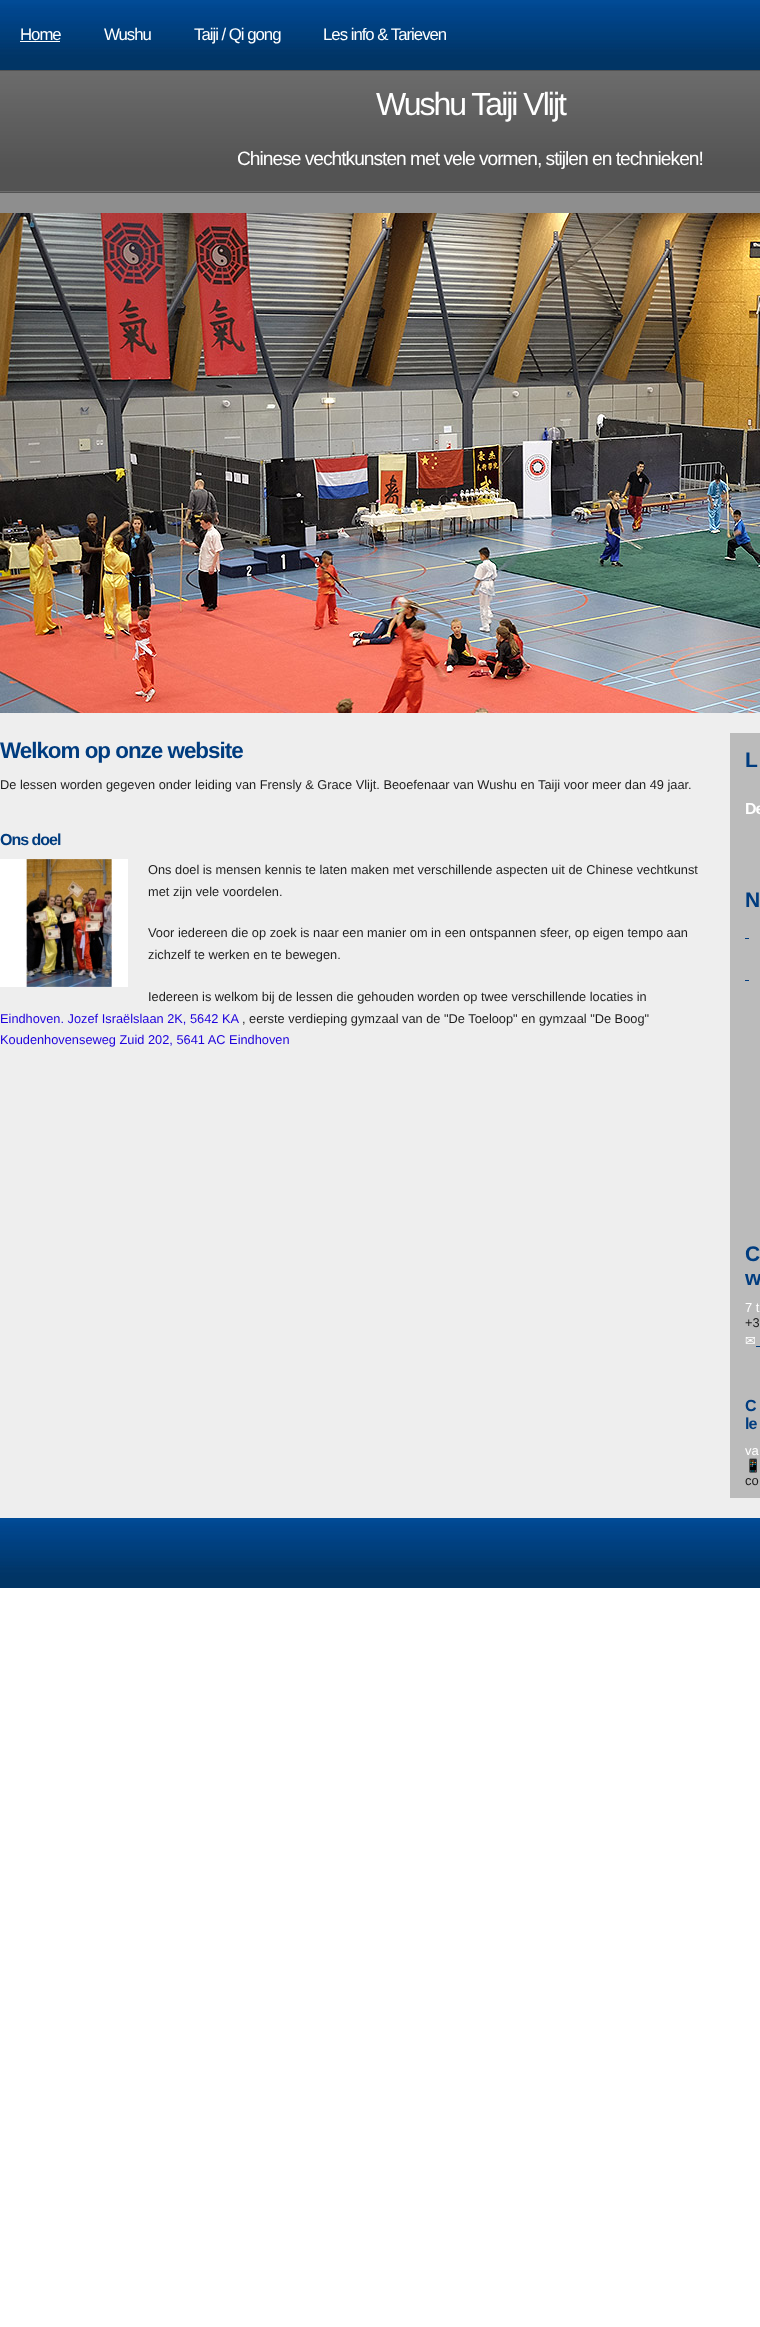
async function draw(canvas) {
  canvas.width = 760;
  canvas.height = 2327;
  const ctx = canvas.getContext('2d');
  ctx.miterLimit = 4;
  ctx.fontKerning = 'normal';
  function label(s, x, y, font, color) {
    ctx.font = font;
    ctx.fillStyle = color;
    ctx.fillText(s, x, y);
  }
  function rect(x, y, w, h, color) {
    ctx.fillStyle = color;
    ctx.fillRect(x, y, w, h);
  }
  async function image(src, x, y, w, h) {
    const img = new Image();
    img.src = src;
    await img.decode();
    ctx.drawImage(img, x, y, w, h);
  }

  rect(0, 0, 760, 2327, '#fff');
  await image('assets/img1.png', 0, 0, 760, 70);
  ctx.letterSpacing = '-1px';
  label('Home', 20, 40, '16.75px Liberation Sans', '#fff');
  rect(20, 41, 40, 1, '#fff');
  label('Wushu', 104, 40, '16.75px Liberation Sans', '#fff');
  label('Taiji / Qi gong', 194, 40, '16.75px Liberation Sans', '#fff');
  label('Les info & Tarieven', 323, 40, '16.75px Liberation Sans', '#fff');
  rect(0, 70, 760, 1, '#535353');
  rect(0, 191, 760, 1, '#6c6c6c');
  await image('assets/img2.png', 0, 71, 760, 120);
  ctx.letterSpacing = '-2px';
  label('Wushu Taiji Vlijt', 376, 115, '32px Liberation Sans', '#fff');
  ctx.letterSpacing = '-1px';
  label('Chinese vechtkunsten met vele vormen, stijlen en technieken!', 237, 165, '19.2px Liberation Sans', '#fff');
  rect(0, 713, 760, 805, '#eee');
  await image('assets/img3.png', 0, 193, 760, 20);
  rect(0, 192, 760, 1, '#535353');
  await image('assets/img4.png', 0, 213, 760, 500);
  label('Welkom op onze website', 0, 758, 'bold 22.4px Liberation Sans', '#003c7f');
  ctx.letterSpacing = '0px';
  label('De lessen worden gegeven onder leiding van Frensly & Grace Vlijt. Beoefenaar van Wushu en Taiji voor meer dan 49 jaar.', 0, 789, '12.8px Liberation Sans', '#1d1d1d');
  ctx.letterSpacing = '-1px';
  label('Ons doel', 0, 845, 'bold 16px Liberation Sans', '#003c7f');
  await image('assets/img5.png', 0, 859, 128, 128);
  ctx.letterSpacing = '0px';
  label('Ons doel is mensen kennis te laten maken met verschillende aspecten uit de Chinese vechtkunst', 148, 874, '12.8px Liberation Sans', '#1d1d1d');
  label('met zijn vele voordelen.', 148, 896, '12.8px Liberation Sans', '#1d1d1d');
  label('Voor iedereen die op zoek is naar een manier om in een ontspannen sfeer, op eigen tempo aan', 148, 937, '12.8px Liberation Sans', '#1d1d1d');
  label('zichzelf te werken en te bewegen.', 148, 959, '12.8px Liberation Sans', '#1d1d1d');
  label('Iedereen is welkom bij de lessen die gehouden worden op twee verschillende locaties in', 148, 1001, '12.8px Liberation Sans', '#1d1d1d');
  label('Eindhoven. Jozef Israëlslaan 2K, 5642 KA', 0, 1023, '12.8px Liberation Sans', '#1d00dc');
  label(', eerste verdieping gymzaal van de "De Toeloop" en gymzaal "De Boog"', 242, 1023, '12.8px Liberation Sans', '#1d1d1d');
  label('Koudenhovenseweg Zuid 202, 5641 AC Eindhoven', 0, 1044, '12.8px Liberation Sans', '#1d00dc');
  rect(730, 733, 30, 765, '#bbb');
  ctx.letterSpacing = '-1px';
  label('L', 745, 767, 'bold 21px Liberation Sans', '#003c7f');
  label('De', 745, 814, 'bold 16px Liberation Sans', '#fff');
  label('N', 745, 907, 'bold 21px Liberation Sans', '#003c7f');
  rect(745, 938, 4, 1, '#003c7f');
  rect(745, 980, 4, 1, '#003c7f');
  label('C', 745, 1261, 'bold 21px Liberation Sans', '#003c7f');
  label('w', 745, 1285, 'bold 21px Liberation Sans', '#003c7f');
  ctx.letterSpacing = '0px';
  label('7 t', 745, 1312, '13px Liberation Sans', '#fff');
  label('+3', 745, 1327, '12.8px Liberation Sans', '#1d1d1d');
  label('✉', 745, 1345, '12.8px DejaVu Sans', '#fff');
  rect(756, 1346, 4, 1, '#003c7f');
  ctx.letterSpacing = '-1px';
  label('C', 745, 1411, 'bold 16px Liberation Sans', '#003c7f');
  label('le', 745, 1429, 'bold 16px Liberation Sans', '#003c7f');
  ctx.letterSpacing = '0px';
  label('va', 745, 1455, '13px Liberation Sans', '#fff');
  label('📱', 745, 1470, '13px Noto Color Emoji', '#00f');
  label('co', 745, 1485, '13px Liberation Sans', '#1d1d1d');
  await image('assets/img1.png', 0, 1518, 760, 70);
}

draw(document.querySelector('canvas'));
